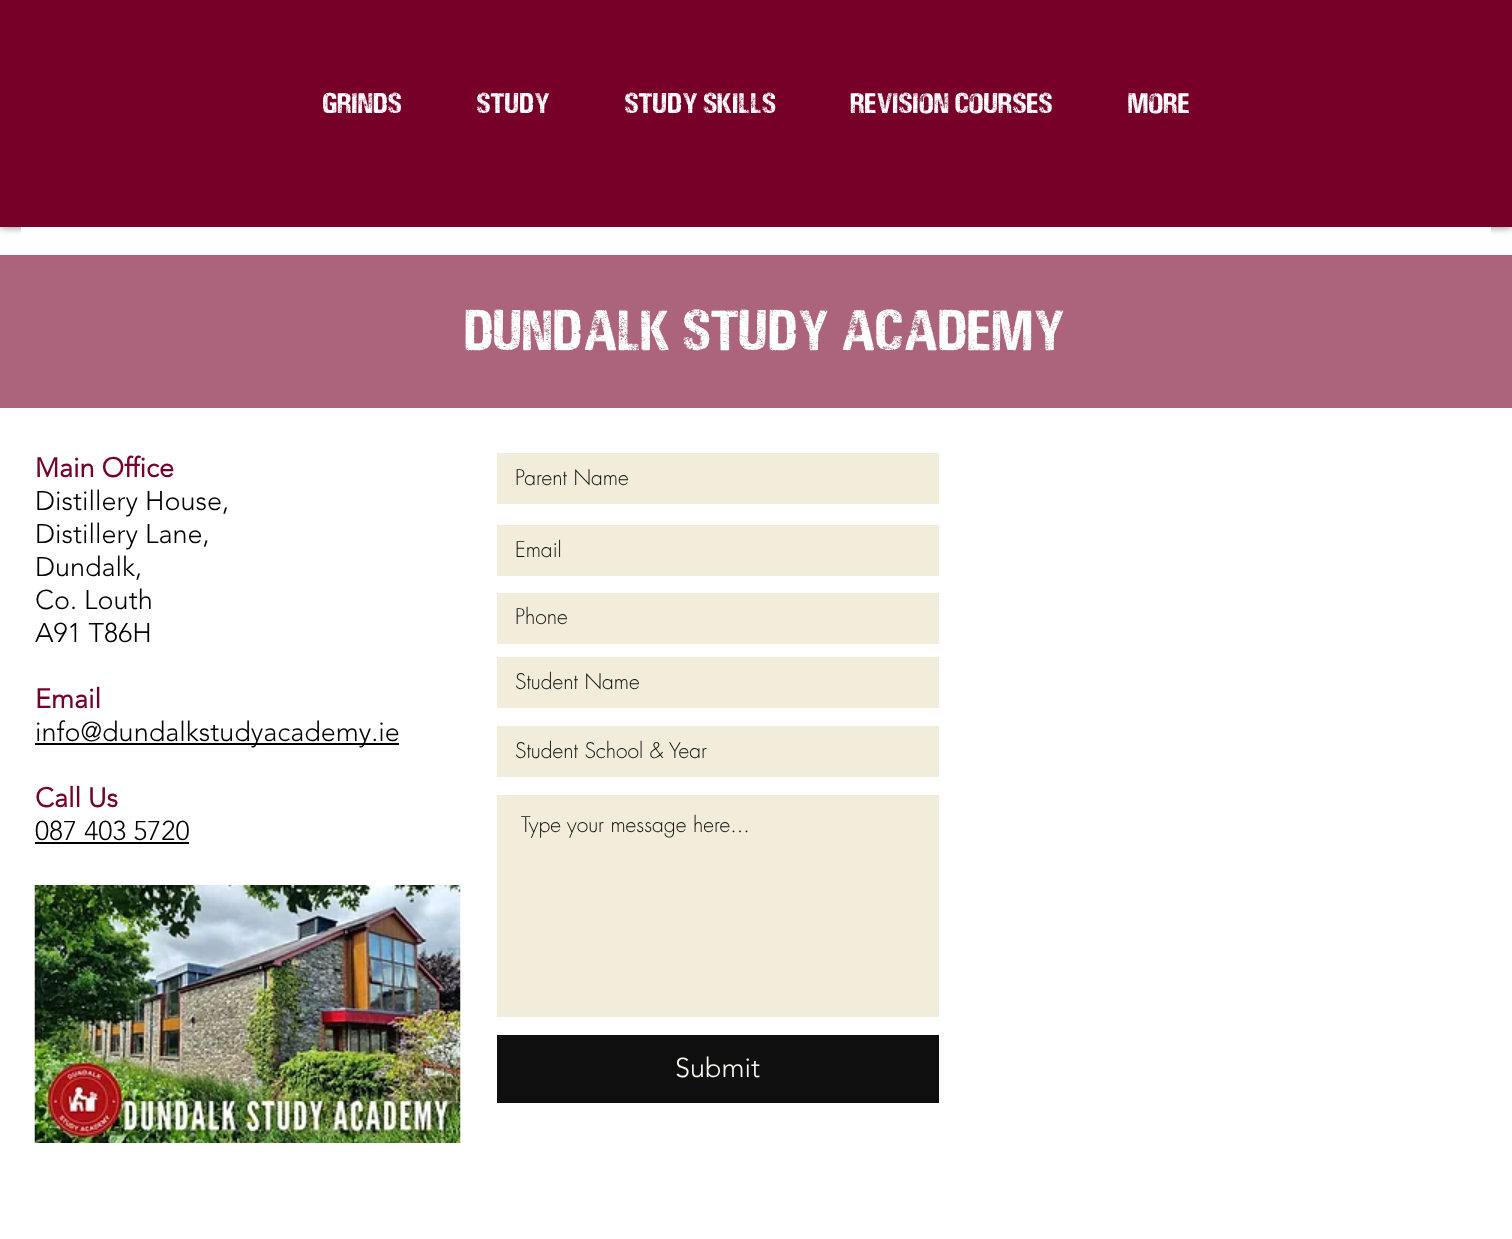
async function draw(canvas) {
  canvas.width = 1512;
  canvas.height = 1239;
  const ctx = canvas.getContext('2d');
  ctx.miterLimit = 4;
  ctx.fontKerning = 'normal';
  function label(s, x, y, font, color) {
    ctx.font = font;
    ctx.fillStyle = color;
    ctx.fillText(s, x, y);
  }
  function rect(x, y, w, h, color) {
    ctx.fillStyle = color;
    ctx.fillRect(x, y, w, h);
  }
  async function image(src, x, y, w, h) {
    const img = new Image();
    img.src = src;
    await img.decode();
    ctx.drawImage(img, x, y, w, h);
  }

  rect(0, 0, 1512, 1239, '#fff');
  ctx.fillStyle = '#00000080';
  ctx.filter = 'blur(4px)';
  ctx.beginPath();
  ctx.rect(0, 0, 1512, 227);
  ctx.fill();
  ctx.filter = 'none';
  rect(0, 0, 1512, 227, '#770028');
  label('GRINDS', 323, 113, '33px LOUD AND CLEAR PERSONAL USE', '#fff');
  label('STUDY', 477, 113, '33px LOUD AND CLEAR PERSONAL USE', '#fff');
  label('STUDY SKILLS', 625, 113, '33px LOUD AND CLEAR PERSONAL USE', '#fff');
  label('REVISION COURSES', 851, 113, '33px LOUD AND CLEAR PERSONAL USE', '#fff');
  label('More', 1128, 113, '33px LOUD AND CLEAR PERSONAL USE', '#fff');
  rect(21, 227, 1470, 8, '#fff');
  rect(0, 255, 1512, 153, '#ac647c');
  label('Dundalk Study Academy', 465, 350, '66px LOUD AND CLEAR PERSONAL USE', '#fff');
  label('Main Office', 35, 477, 'bold 27px "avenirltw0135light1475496"', '#770028');
  label('Distillery House,', 35, 510, '300 27px "avenirltw0135light1475496"', '#000');
  label('Distillery Lane,', 35, 543, '300 27px "avenirltw0135light1475496"', '#000');
  label('Dundalk,', 35, 576, '300 27px "avenirltw0135light1475496"', '#000');
  label('Co. Louth', 35, 609, '300 27px "avenirltw0135light1475496"', '#000');
  label('A91 T86H', 35, 642, '300 27px "avenirltw0135light1475496"', '#000');
  label('Email', 35, 708, 'bold 27px "avenirltw0135light1475496"', '#770028');
  rect(35, 743, 364, 2, '#000');
  label('info@dundalkstudyacademy.ie', 35, 741, '300 27px "avenirltw0135light1475496"', '#000');
  label('Call Us', 35, 807, 'bold 27px "avenirltw0135light1475496"', '#770028');
  label('087 403 5720', 35, 840, '300 27px "avenirltw0135light1475496"', '#000');
  rect(35, 842, 154, 2, '#000');
  rect(497, 453, 442, 51, '#f2eddb');
  label('Parent Name', 515, 485, '300 21px futura', '#0f0f0f');
  rect(497, 525, 442, 51, '#f2eddb');
  label('Email', 515, 557, '300 21px futura', '#0f0f0f');
  rect(497, 593, 442, 51, '#f2eddb');
  label('Phone', 515, 624, '300 21px futura', '#0f0f0f');
  rect(497, 657, 442, 51, '#f2eddb');
  label('Student Name', 515, 689, '300 21px futura', '#0f0f0f');
  rect(497, 726, 442, 51, '#f2eddb');
  label('Student School & Year', 515, 758, '300 21px futura', '#0f0f0f');
  rect(497, 795, 442, 222, '#f2eddb');
  label('Type your message here...', 521, 832, '300 21px futura', '#0f0f0f');
  rect(497, 1035, 442, 68, '#0f0f0f');
  label('Submit', 675, 1077, '300 27px "avenirltw0135light1475496"', '#fbfbf3');
  await image('assets/img1.png', 34, 885, 427, 258);
}

draw(document.querySelector('canvas'));
